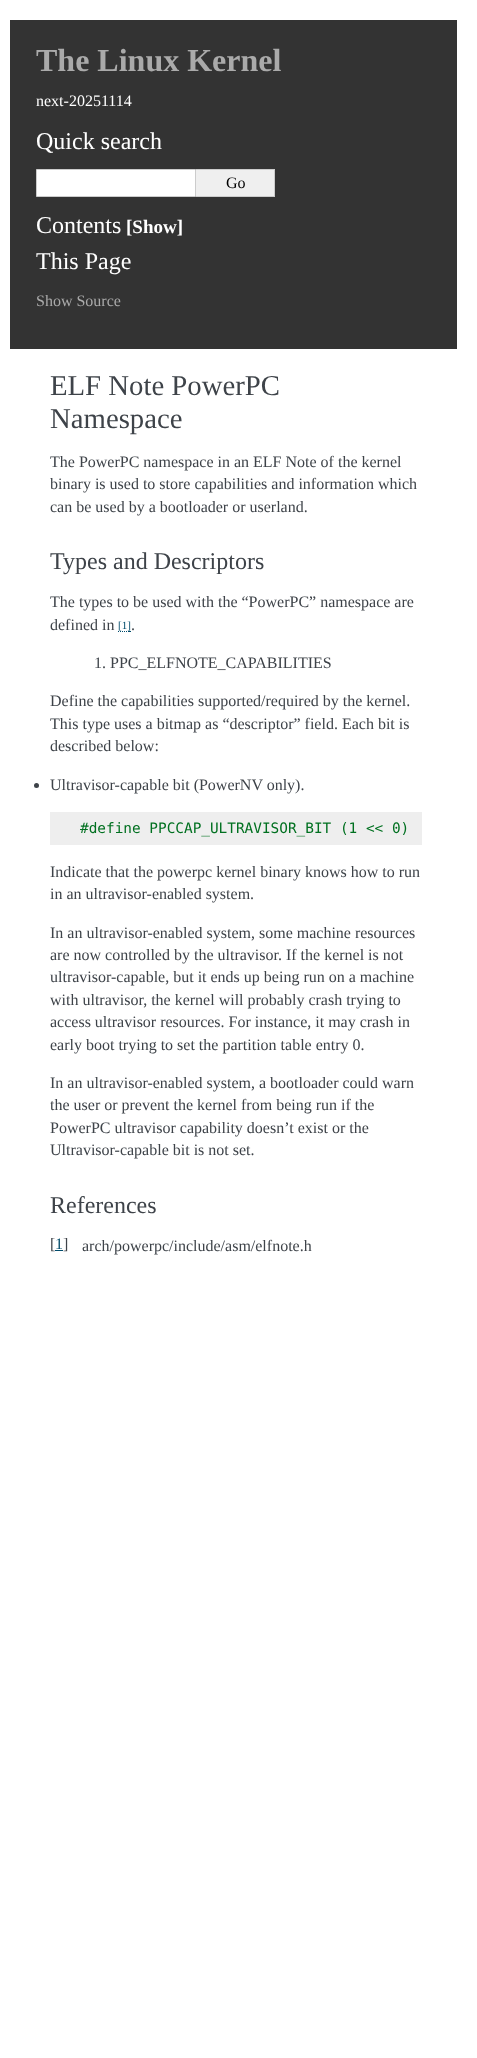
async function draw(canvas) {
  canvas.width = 477;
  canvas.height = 2058;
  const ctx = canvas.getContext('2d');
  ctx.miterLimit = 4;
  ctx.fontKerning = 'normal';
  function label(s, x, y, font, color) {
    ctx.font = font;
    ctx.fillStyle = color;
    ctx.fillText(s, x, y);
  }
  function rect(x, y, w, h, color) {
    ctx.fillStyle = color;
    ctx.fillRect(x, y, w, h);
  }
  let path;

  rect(0, 0, 477, 2058, '#fff');
  rect(10, 20, 447, 329, '#333');
  label('The Linux Kernel', 36, 71, 'bold 32px Liberation Serif', '#aaa');
  label('next-20251114', 36, 106, '16px Liberation Serif', '#fff');
  label('Quick search', 36, 149, '24px Liberation Serif', '#fff');
  ctx.beginPath();
  ctx.rect(36.5, 169.5, 159, 27);
  ctx.fill();
  ctx.strokeStyle = '#ccc';
  ctx.stroke();
  rect(196, 170, 78, 26, '#efefef');
  rect(196, 169, 79, 1, '#ccc');
  rect(274, 169, 1, 28, '#ccc');
  rect(196, 196, 79, 1, '#ccc');
  label('Go', 226, 188, '16px Liberation Serif', '#000');
  label('Contents', 36, 233, '24px Liberation Serif', '#fff');
  label('[Show]', 126, 233, 'bold 19px Liberation Serif', '#fff');
  label('This Page', 36, 269, '24px Liberation Serif', '#fff');
  label('Show Source', 36, 306, '16px Liberation Serif', '#aaa');
  label('ELF Note PowerPC', 50, 395, '28.75px Liberation Serif', '#3e4349');
  label('Namespace', 50, 428, '28.75px Liberation Serif', '#3e4349');
  label('The PowerPC namespace in an ELF Note of the kernel', 50, 467, '16px Liberation Serif', '#3e4349');
  label('binary is used to store capabilities and information which', 50, 489, '16px Liberation Serif', '#3e4349');
  label('can be used by a bootloader or userland.', 50, 512, '16px Liberation Serif', '#3e4349');
  label('Types and Descriptors', 50, 569, '24px Liberation Serif', '#3e4349');
  label('The types to be used with the “PowerPC” namespace are', 50, 607, '16px Liberation Serif', '#3e4349');
  label('defined in', 50, 630, '16px Liberation Serif', '#3e4349');
  label('[1]', 118, 629, '11px Liberation Serif', '#004b6b');
  path = new Path2D('M118 631.5H119M120 631.5H121M122 631.5H123M124 631.5H125M126 631.5H127');
  ctx.strokeStyle = '#004b6b';
  ctx.stroke(path);
  rect(128, 631, 3, 1, '#004b6b');
  label('.', 131, 630, '16px Liberation Serif', '#3e4349');
  label('1. PPC_ELFNOTE_CAPABILITIES', 94, 668, '16px Liberation Serif', '#3e4349');
  label('Define the capabilities supported/required by the kernel.', 50, 706, '16px Liberation Serif', '#3e4349');
  label('This type uses a bitmap as “descriptor” field. Each bit is', 50, 729, '16px Liberation Serif', '#3e4349');
  label('described below:', 50, 751, '16px Liberation Serif', '#3e4349');
  ctx.beginPath();
  ctx.arc(36.5, 785.5, 2.5, 0, 2 * Math.PI);
  ctx.fill();
  label('Ultravisor-capable bit (PowerNV only).', 50, 790, '16px Liberation Serif', '#3e4349');
  rect(50, 812, 372, 33, '#eee');
  label('#define PPCCAP_ULTRAVISOR_BIT (1 << 0)', 80, 833, '14.4px DejaVu Sans Mono', '#007020');
  label('Indicate that the powerpc kernel binary knows how to run', 50, 877, '16px Liberation Serif', '#3e4349');
  label('in an ultravisor-enabled system.', 50, 899, '16px Liberation Serif', '#3e4349');
  label('In an ultravisor-enabled system, some machine resources', 50, 938, '16px Liberation Serif', '#3e4349');
  label('are now controlled by the ultravisor. If the kernel is not', 50, 960, '16px Liberation Serif', '#3e4349');
  label('ultravisor-capable, but it ends up being run on a machine', 50, 982, '16px Liberation Serif', '#3e4349');
  label('with ultravisor, the kernel will probably crash trying to', 50, 1005, '16px Liberation Serif', '#3e4349');
  label('access ultravisor resources. For instance, it may crash in', 50, 1027, '16px Liberation Serif', '#3e4349');
  label('early boot trying to set the partition table entry 0.', 50, 1050, '16px Liberation Serif', '#3e4349');
  label('In an ultravisor-enabled system, a bootloader could warn', 50, 1088, '16px Liberation Serif', '#3e4349');
  label('the user or prevent the kernel from being run if the', 50, 1110, '16px Liberation Serif', '#3e4349');
  label('PowerPC ultravisor capability doesn’t exist or the', 50, 1133, '16px Liberation Serif', '#3e4349');
  label('Ultravisor-capable bit is not set.', 50, 1155, '16px Liberation Serif', '#3e4349');
  label('References', 50, 1213, '24px Liberation Serif', '#3e4349');
  label('[', 50, 1249, '16px Liberation Serif', '#3e4349');
  label('1', 55, 1249, '16px Liberation Serif', '#004b6b');
  rect(55, 1250, 8, 1, '#004b6b');
  label(']', 63, 1249, '16px Liberation Serif', '#3e4349');
  label('arch/powerpc/include/asm/elfnote.h', 82, 1251, '16px Liberation Serif', '#3e4349');
}

draw(document.querySelector('canvas'));
